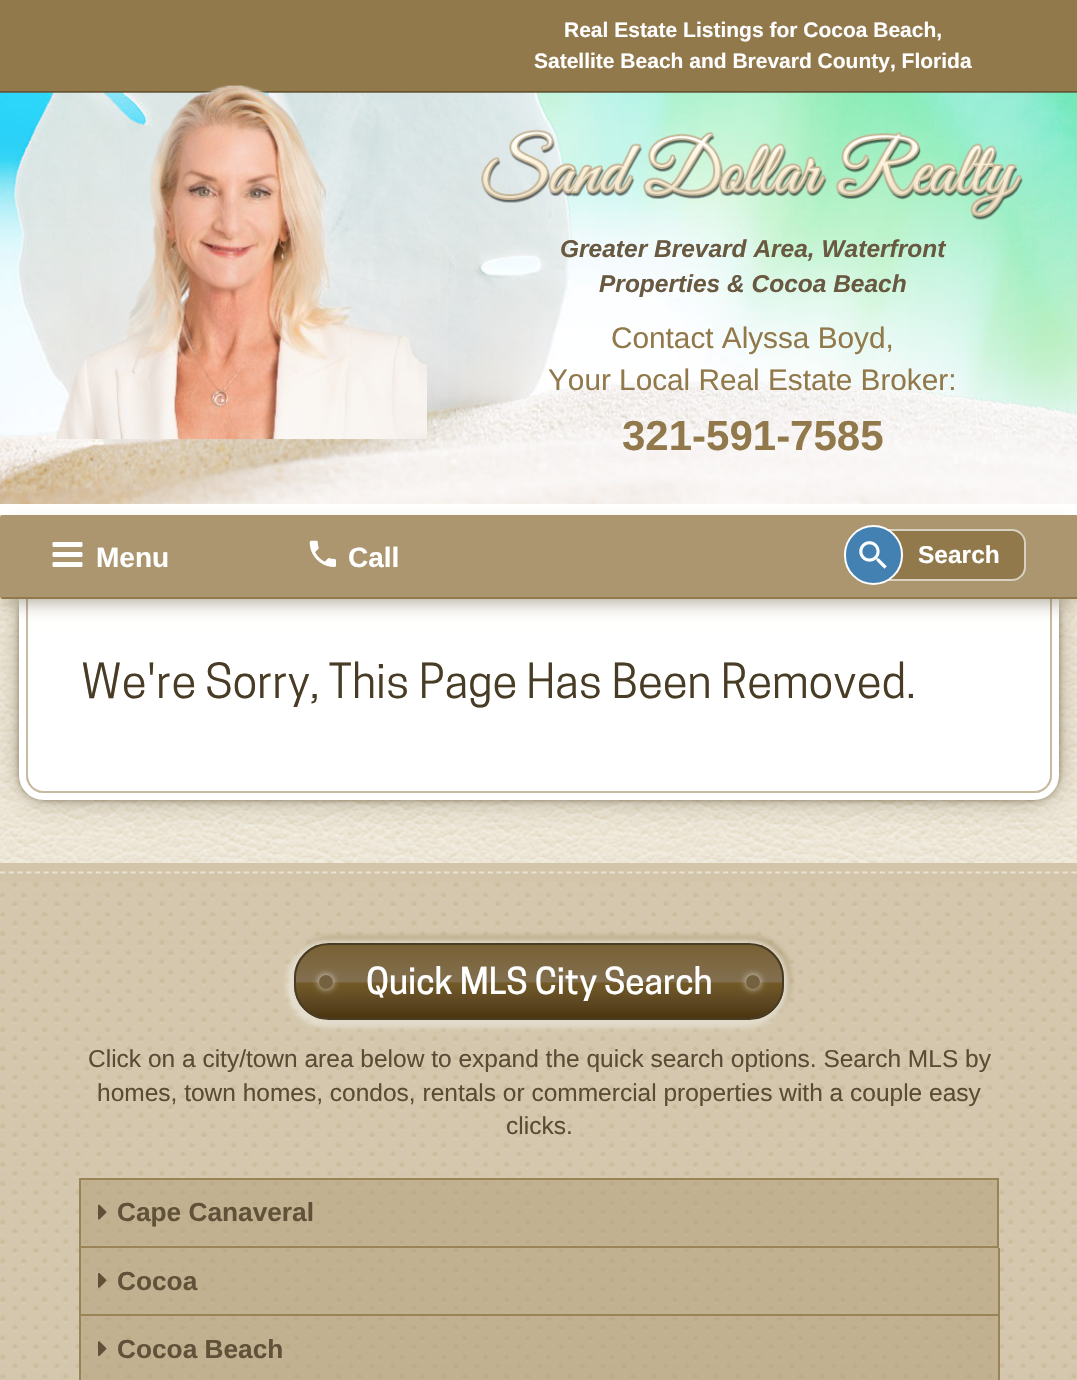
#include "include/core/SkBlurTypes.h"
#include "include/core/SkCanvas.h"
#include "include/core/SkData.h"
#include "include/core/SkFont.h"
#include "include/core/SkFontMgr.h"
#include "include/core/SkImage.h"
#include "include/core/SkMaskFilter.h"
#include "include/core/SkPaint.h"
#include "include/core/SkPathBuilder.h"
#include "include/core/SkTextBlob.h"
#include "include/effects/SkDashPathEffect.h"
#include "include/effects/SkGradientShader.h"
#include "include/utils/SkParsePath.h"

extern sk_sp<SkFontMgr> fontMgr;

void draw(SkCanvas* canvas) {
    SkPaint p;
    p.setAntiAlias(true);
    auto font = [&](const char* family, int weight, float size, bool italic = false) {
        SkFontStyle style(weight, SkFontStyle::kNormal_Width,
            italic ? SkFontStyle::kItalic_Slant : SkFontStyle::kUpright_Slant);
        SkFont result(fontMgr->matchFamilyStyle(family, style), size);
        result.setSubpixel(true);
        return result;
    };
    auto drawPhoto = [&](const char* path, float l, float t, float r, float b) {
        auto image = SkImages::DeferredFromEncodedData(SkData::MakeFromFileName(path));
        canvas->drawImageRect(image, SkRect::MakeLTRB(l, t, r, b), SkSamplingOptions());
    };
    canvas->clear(0xFFFFFFFF);
    drawPhoto("media/1.png", 0, 599, 1077, 863);
    p.setColor(0xFF91794B);
    canvas->drawRect(SkRect::MakeLTRB(0, 0, 1077, 91), p);
    p.setColor(0xFF665535);
    canvas->drawRect(SkRect::MakeLTRB(0, 91, 1077, 93), p);
    auto font1 = font("Liberation Sans", 700, 21);
    p.setColor(0xFFFFFFFF);
    canvas->drawString("Real Estate Listings for Cocoa Beach,", 564, 37, font1, p);
    canvas->drawString("Satellite Beach and Brevard County, Florida", 534, 68, font1, p);
    drawPhoto("media/2.png", 0, 92, 1077, 504);
    drawPhoto("media/3.png", 56, 84, 427, 440);
    drawPhoto("media/4.png", 481, 129, 1023, 220);
    auto font2 = font("Liberation Sans", 700, 24.5f, true);
    p.setColor(0xFF695941);
    canvas->drawString("Greater Brevard Area, Waterfront", 560, 257, font2, p);
    canvas->drawString("Properties & Cocoa Beach", 599, 292, font2, p);
    auto font3 = font("Liberation Sans", 400, 29.75f);
    p.setColor(0xFF91794B);
    canvas->drawString("Contact Alyssa Boyd,", 611, 348, font3, p);
    canvas->drawString("Your Local Real Estate Broker:", 548, 390, font3, p);
    auto font4 = font("Liberation Sans", 700, 42);
    canvas->drawString("321-591-7585", 622, 450, font4, p);
    p.setColor(0x66332200);
    p.setMaskFilter(SkMaskFilter::MakeBlur(kNormal_SkBlurStyle, 17.5f));
    canvas->drawRoundRect(SkRect::MakeLTRB(25, 597, 1054, 795), 19, 19, p);
    p.setMaskFilter(nullptr);
    p.setColor(0xB3332200);
    p.setMaskFilter(SkMaskFilter::MakeBlur(kNormal_SkBlurStyle, 4.5f));
    canvas->drawRoundRect(SkRect::MakeLTRB(21, 593, 1057, 798), 23, 23, p);
    p.setMaskFilter(nullptr);
    p.setStyle(SkPaint::kStroke_Style);
    p.setStrokeWidth(7);
    p.setColor(0xFFFFFFFF);
    canvas->drawPath(SkPathBuilder().moveTo(22.5f, 595.5f).lineTo(1055.5f, 595.5f).lineTo(1055.5f, 775).cubicTo(1055.5f, 787, 1046, 796.5f, 1034, 796.5f).lineTo(44, 796.5f).cubicTo(32, 796.5f, 22.5f, 787, 22.5f, 775).close().detach(), p);
    p.setStyle(SkPaint::kFill_Style);
    canvas->drawPath(SkPathBuilder().moveTo(26, 599).lineTo(1052, 599).lineTo(1052, 775).cubicTo(1052, 785, 1044, 793, 1034, 793).lineTo(44, 793).cubicTo(34, 793, 26, 785, 26, 775).close().detach(), p);
    p.setColor(0xFFC8BA9F);
    canvas->drawPath(SkPathBuilder(SkPathFillType::kEvenOdd).moveTo(26, 598).lineTo(1052, 598).lineTo(1052, 775).cubicTo(1052, 785, 1044, 793, 1034, 793).lineTo(44, 793).cubicTo(34, 793, 26, 785, 26, 775).close().moveTo(28, 598).lineTo(1050, 598).lineTo(1050, 775).cubicTo(1050, 784, 1043, 791, 1034, 791).lineTo(44, 791).cubicTo(35, 791, 28, 784, 28, 775).close().detach(), p);
    p.setColor(0x66332200);
    p.setMaskFilter(SkMaskFilter::MakeBlur(kNormal_SkBlurStyle, 9));
    canvas->drawRect(SkRect::MakeLTRB(5, 529, 1073, 602), p);
    p.setMaskFilter(nullptr);
    p.setColor(0xFFAB966F);
    canvas->drawRoundRect(SkRect::MakeLTRB(0, 515, 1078, 599), 2, 2, p);
    p.setColor(0xFF91794B);
    canvas->drawRect(SkRect::MakeLTRB(2, 597, 1077, 599), p);
    drawPhoto("media/5.png", 52, 542, 83, 567);
    auto font5 = font("Liberation Sans", 700, 28);
    p.setColor(0xFFFFFFFF);
    canvas->drawString("Menu", 96, 567, font5, p);
    drawPhoto("media/6.png", 309, 540, 336, 567);
    canvas->drawString("Call", 348, 567, font5, p);
    p.setColor(0xFF91794B);
    canvas->drawPath(SkPathBuilder().moveTo(860, 530).lineTo(1012, 530).cubicTo(1019, 530, 1025, 536, 1025, 543).lineTo(1025, 567).cubicTo(1025, 574, 1019, 580, 1012, 580).lineTo(860, 580).close().detach(), p);
    p.setStyle(SkPaint::kStroke_Style);
    p.setStrokeWidth(2);
    p.setColor(0xFFD8D0C1);
    canvas->drawPath(SkPathBuilder().moveTo(860, 530).lineTo(1012, 530).cubicTo(1019, 530, 1025, 536, 1025, 543).lineTo(1025, 567).cubicTo(1025, 574, 1019, 580, 1012, 580).lineTo(860, 580).close().detach(), p);
    p.setStyle(SkPaint::kFill_Style);
    p.setColor(0xFF4281B1);
    canvas->drawRoundRect(SkRect::MakeLTRB(845, 526, 902, 584), 28.5f, 28.5f, p);
    p.setStyle(SkPaint::kStroke_Style);
    p.setColor(0xFFFFFFFF);
    canvas->drawRoundRect(SkRect::MakeLTRB(845, 526, 902, 584), 28.5f, 28.5f, p);
    drawPhoto("media/7.png", 859, 541, 887, 569);
    auto font6 = font("Liberation Sans", 700, 24.5f);
    p.setStyle(SkPaint::kFill_Style);
    canvas->drawString("Search", 918, 563, font6, p);
    auto font7 = font("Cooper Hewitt", 400, 45.5f);
    p.setColor(0xFF483C25);
    canvas->drawString("We're Sorry, This Page Has Been Removed.", 81, 698, font7, p);
    p.setStyle(SkPaint::kStroke_Style);
    p.setStrokeWidth(9);
    p.setColor(0xFFD2C5A9);
    canvas->drawRect(SkRect::MakeLTRB(-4.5f, 867.5f, 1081.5f, 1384.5f), p);
    p.setStyle(SkPaint::kFill_Style);
    canvas->drawRect(SkRect::MakeLTRB(5, 872, 1077, 873), p);
    drawPhoto("media/8.png", 0, 882, 1077, 1380);
    canvas->save();
    canvas->clipRect(SkRect::MakeLTRB(0, 873, 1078, 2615));
    canvas->drawPath(SkPathBuilder(SkPathFillType::kEvenOdd).moveTo(-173, 700).lineTo(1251, 700).lineTo(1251, 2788).lineTo(-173, 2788).close().moveTo(0, 882).lineTo(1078, 882).cubicTo(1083, 882, 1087, 886, 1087, 891).lineTo(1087, 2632).cubicTo(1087, 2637, 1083, 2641, 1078, 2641).lineTo(0, 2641).cubicTo(-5, 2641, -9, 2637, -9, 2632).lineTo(-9, 891).cubicTo(-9, 886, -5, 882, 0, 882).close().detach(), p);
    canvas->restore();
    p.setStyle(SkPaint::kStroke_Style);
    p.setStrokeWidth(1.8f);
    p.setColor(0xFFEAE2D1);
    p.setPathEffect(SkDashPathEffect::Make({{5.25f, 3.46f}}, 0));
    canvas->drawPath(SkPathBuilder().moveTo(0, 872.5f).lineTo(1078, 872.5f).detach(), p);
    p.setPathEffect(nullptr);
    p.setStyle(SkPaint::kFill_Style);
    p.setColor(0x7391794B);
    p.setMaskFilter(SkMaskFilter::MakeBlur(kNormal_SkBlurStyle, 2.5f));
    canvas->drawRoundRect(SkRect::MakeLTRB(291, 936, 791, 1024), 40, 40, p);
    p.setMaskFilter(nullptr);
    p.setColor(0xBFF0ECE2);
    p.setMaskFilter(SkMaskFilter::MakeBlur(kNormal_SkBlurStyle, 2.5f));
    canvas->drawRoundRect(SkRect::MakeLTRB(287, 940, 788, 1027), 40, 40, p);
    p.setMaskFilter(nullptr);
    canvas->save();
    canvas->clipPath(SkPathBuilder().moveTo(329, 943).lineTo(749, 943).cubicTo(768.5f, 943, 784, 958.5f, 784, 978).lineTo(784, 985).cubicTo(784, 1004.5f, 768.5f, 1020, 749, 1020).lineTo(329, 1020).cubicTo(309.5f, 1020, 294, 1004.5f, 294, 985).lineTo(294, 978).cubicTo(294, 958.5f, 309.5f, 943, 329, 943).close().detach(), true);
    {
        const SkColor colors[] = {0xFF796134, 0xFF826F50, 0xFF735A27, 0xFF5D4722, 0xFF4A340E};
        const float stops[] = {0, 0.5f, 0.51f, 0.78f, 1};
        const SkPoint ends[] = {{539, 945}, {539, 1019}};
        p.setShader(SkGradientShader::MakeLinear(ends, colors, stops, 5, SkTileMode::kClamp));
        p.setAlpha(255);
    }
    canvas->drawRect(SkRect::MakeLTRB(294, 945, 784, 1019), p);
    canvas->restore();
    p.setStyle(SkPaint::kStroke_Style);
    p.setStrokeWidth(2);
    p.setShader(nullptr);
    p.setColor(0xFF483C25);
    canvas->drawRoundRect(SkRect::MakeLTRB(295, 944, 783, 1019), 34, 34, p);
    p.setStyle(SkPaint::kFill_Style);
    p.setColor(0xCCFFFFFF);
    p.setMaskFilter(SkMaskFilter::MakeBlur(kNormal_SkBlurStyle, 3.5f));
    canvas->drawRoundRect(SkRect::MakeLTRB(319, 975, 333, 989), 7, 7, p);
    p.setMaskFilter(nullptr);
    p.setColor(0xFF736140);
    canvas->drawCircle(326, 982, 7, p);
    auto font8 = font("Cooper Hewitt", 500, 35);
    p.setColor(0xFFFFFFFF);
    canvas->drawString("Quick MLS City Search", 366, 994, font8, p);
    p.setColor(0xCCFFFFFF);
    p.setMaskFilter(SkMaskFilter::MakeBlur(kNormal_SkBlurStyle, 3.5f));
    canvas->drawRoundRect(SkRect::MakeLTRB(746, 975, 760, 989), 7, 7, p);
    p.setMaskFilter(nullptr);
    p.setColor(0xFF736140);
    canvas->drawCircle(753, 982, 7, p);
    auto font9 = font("Liberation Sans", 400, 24.5f);
    p.setColor(0xFF5A4B34);
    {
        const struct { const char* s; float x, y; } items[] = {
            {"Click on a city/town area below to expand the quick search options. Search MLS by", 88, 1067},
            {"homes, town homes, condos, rentals or commercial properties with a couple easy", 97, 1101},
            {"clicks.", 506, 1134},
        };
        for (auto [s, x, y] : items) {
            canvas->drawString(s, x, y, font9, p);
        }
    }
    p.setColor(0x73AB966F);
    canvas->drawRect(SkRect::MakeLTRB(80, 1179, 998, 1247), p);
    p.setStyle(SkPaint::kStroke_Style);
    p.setColor(0xFF998357);
    canvas->drawRect(SkRect::MakeLTRB(80, 1179, 998, 1247), p);
    drawPhoto("media/9.png", 98, 1204, 107, 1220);
    auto font10 = font("Liberation Sans", 700, 26.25f);
    p.setStyle(SkPaint::kFill_Style);
    p.setColor(0xFF615139);
    canvas->drawString("Cape Canaveral", 117, 1221, font10, p);
    {
        const struct { float l, t, r, b; SkColor color; } items[] = {
            {81, 1248, 998, 1314, 0x73AB966F},
            {998, 1248, 1000, 1380, 0xFF998357},
            {79, 1314, 999, 1316, 0xFF998357},
            {79, 1248, 81, 1380, 0xFF998357},
        };
        for (auto [l, t, r, b, color] : items) {
            p.setColor(color);
            canvas->drawRect(SkRect::MakeLTRB(l, t, r, b), p);
        }
    }
    drawPhoto("media/10.png", 98, 1273, 107, 1288);
    p.setColor(0xFF615139);
    canvas->drawString("Cocoa", 117, 1290, font10, p);
    p.setColor(0x73AB966F);
    canvas->drawRect(SkRect::MakeLTRB(81, 1316, 998, 1380), p);
    drawPhoto("media/11.png", 98, 1341, 107, 1356);
    p.setColor(0xFF615139);
    canvas->drawString("Cocoa Beach", 117, 1358, font10, p);
}
